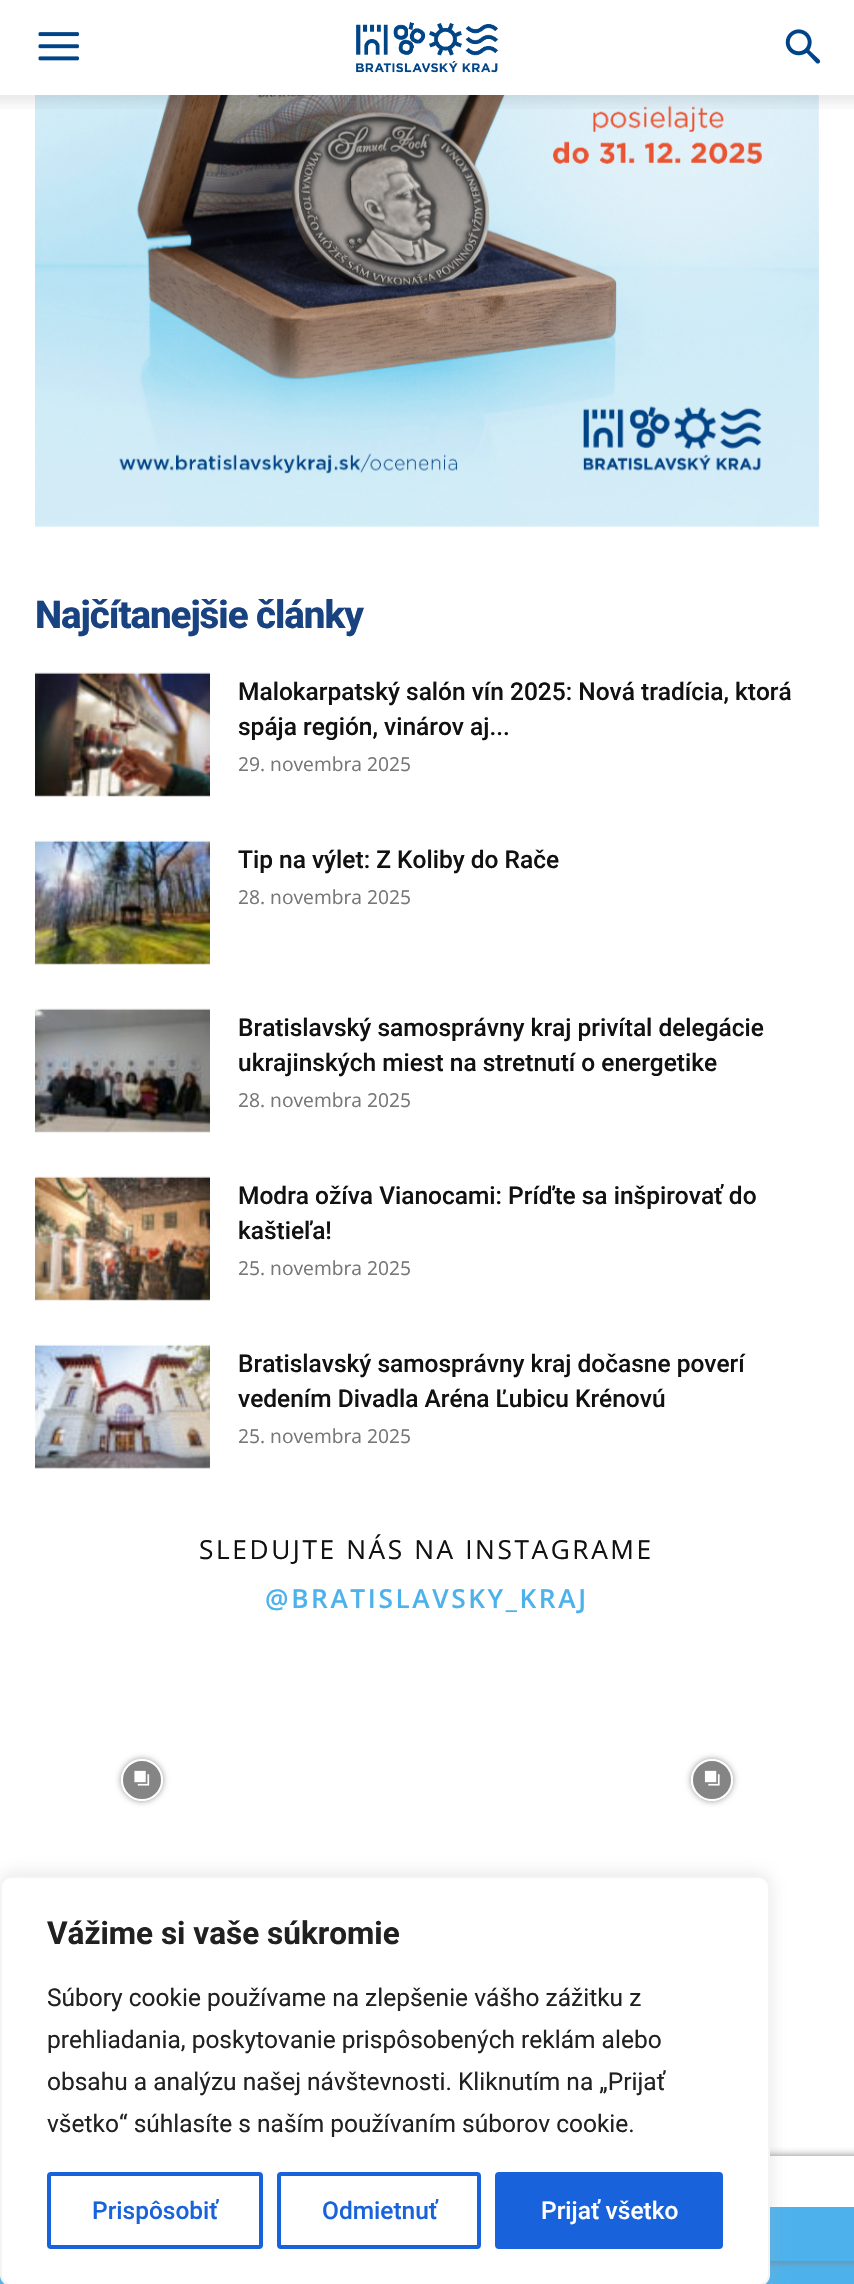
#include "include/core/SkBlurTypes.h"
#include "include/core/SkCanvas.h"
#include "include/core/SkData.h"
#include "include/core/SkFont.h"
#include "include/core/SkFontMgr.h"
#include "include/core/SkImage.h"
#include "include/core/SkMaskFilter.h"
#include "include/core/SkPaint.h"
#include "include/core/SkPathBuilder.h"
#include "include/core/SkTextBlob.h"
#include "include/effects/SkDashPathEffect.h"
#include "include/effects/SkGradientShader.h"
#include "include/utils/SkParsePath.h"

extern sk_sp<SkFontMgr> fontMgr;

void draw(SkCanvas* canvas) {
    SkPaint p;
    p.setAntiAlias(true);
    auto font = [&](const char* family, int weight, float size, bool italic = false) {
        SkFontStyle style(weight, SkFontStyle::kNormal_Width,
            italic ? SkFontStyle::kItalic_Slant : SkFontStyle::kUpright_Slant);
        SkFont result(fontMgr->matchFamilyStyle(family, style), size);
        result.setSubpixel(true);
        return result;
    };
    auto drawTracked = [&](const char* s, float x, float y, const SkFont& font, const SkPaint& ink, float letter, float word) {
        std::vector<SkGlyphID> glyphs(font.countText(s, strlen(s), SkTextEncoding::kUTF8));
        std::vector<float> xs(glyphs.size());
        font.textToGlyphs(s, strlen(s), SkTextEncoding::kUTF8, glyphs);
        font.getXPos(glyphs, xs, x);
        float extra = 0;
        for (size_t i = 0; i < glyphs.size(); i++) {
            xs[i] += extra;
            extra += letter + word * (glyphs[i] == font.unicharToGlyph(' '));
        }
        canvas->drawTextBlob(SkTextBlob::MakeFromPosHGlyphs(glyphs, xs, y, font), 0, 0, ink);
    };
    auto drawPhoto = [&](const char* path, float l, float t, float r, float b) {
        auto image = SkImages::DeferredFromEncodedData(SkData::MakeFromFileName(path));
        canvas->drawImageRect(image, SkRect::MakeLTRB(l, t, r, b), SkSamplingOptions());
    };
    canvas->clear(0xFFFFFFFF);
    drawPhoto("media/1.png", 38, 32, 79, 61);
    drawPhoto("media/2.png", 356, 22, 499, 73);
    drawPhoto("media/3.png", 785, 29, 821, 64);
    drawPhoto("media/5.png", 35, 95, 819, 527);
    drawPhoto("media/4.png", 0, 95, 854, 109);
    auto font1 = font("Roboto", 800, 38.5f);
    p.setColor(0xFF194281);
    drawTracked("Najčítanejšie články", 35, 628, font1, p, -1.05f, 0);
    drawPhoto("media/6.png", 35, 672, 210, 797);
    auto font2 = font("Roboto", 500, 24.5f);
    p.setColor(0xFF111111);
    canvas->drawString("Malokarpatský salón vín 2025: Nová tradícia, ktorá", 238, 700, font2, p);
    canvas->drawString("spája región, vinárov aj...", 238, 735, font2, p);
    auto font3 = font("Open Sans", 400, 19.25f);
    p.setColor(0xFF767676);
    canvas->drawString("29. novembra 2025", 238, 771, font3, p);
    drawPhoto("media/7.png", 35, 840, 210, 965);
    p.setColor(0xFF111111);
    canvas->drawString("Tip na výlet: Z Koliby do Rače", 238, 868, font2, p);
    p.setColor(0xFF767676);
    canvas->drawString("28. novembra 2025", 238, 904, font3, p);
    drawPhoto("media/8.png", 35, 1008, 210, 1133);
    p.setColor(0xFF111111);
    canvas->drawString("Bratislavský samosprávny kraj privítal delegácie", 238, 1036, font2, p);
    canvas->drawString("ukrajinských miest na stretnutí o energetike", 238, 1071, font2, p);
    p.setColor(0xFF767676);
    canvas->drawString("28. novembra 2025", 238, 1107, font3, p);
    drawPhoto("media/9.png", 35, 1176, 210, 1301);
    p.setColor(0xFF111111);
    canvas->drawString("Modra ožíva Vianocami: Príďte sa inšpirovať do", 238, 1204, font2, p);
    canvas->drawString("kaštieľa!", 238, 1239, font2, p);
    p.setColor(0xFF767676);
    canvas->drawString("25. novembra 2025", 238, 1275, font3, p);
    drawPhoto("media/10.png", 35, 1344, 210, 1469);
    p.setColor(0xFF111111);
    canvas->drawString("Bratislavský samosprávny kraj dočasne poverí", 238, 1372, font2, p);
    canvas->drawString("vedením Divadla Aréna Ľubicu Krénovú", 238, 1407, font2, p);
    p.setColor(0xFF767676);
    canvas->drawString("25. novembra 2025", 238, 1443, font3, p);
    auto font4 = font("Open Sans", 400, 26.25f);
    p.setColor(0xFF111111);
    drawTracked("SLEDUJTE NÁS NA INSTAGRAME", 199, 1559, font4, p, 2.6f, 0);
    auto font5 = font("Open Sans", 600, 26.25f);
    p.setColor(0xFF4DB2EC);
    drawTracked("@BRATISLAVSKY_KRAJ", 265, 1608, font5, p, 2.6f, 0);
    canvas->save();
    canvas->clipPath(SkPathBuilder(SkPathFillType::kEvenOdd).moveTo(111, 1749).lineTo(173, 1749).lineTo(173, 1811).lineTo(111, 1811).close().moveTo(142, 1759).cubicTo(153.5f, 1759, 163, 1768.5f, 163, 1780).cubicTo(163, 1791.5f, 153.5f, 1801, 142, 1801).cubicTo(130.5f, 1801, 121, 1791.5f, 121, 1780).cubicTo(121, 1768.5f, 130.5f, 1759, 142, 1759).close().detach(), true);
    p.setColor(0x66000000);
    p.setMaskFilter(SkMaskFilter::MakeBlur(kNormal_SkBlurStyle, 3));
    canvas->drawRoundRect(SkRect::MakeLTRB(121, 1759, 163, 1801), 21, 21, p);
    p.setMaskFilter(nullptr);
    canvas->restore();
    p.setColor(0x7A000000);
    canvas->drawCircle(142, 1780, 20, p);
    p.setStyle(SkPaint::kStroke_Style);
    p.setStrokeWidth(2);
    p.setColor(0xFFFFFFFF);
    canvas->drawCircle(142, 1780, 20, p);
    drawPhoto("media/11.png", 134, 1770, 150, 1786);
    canvas->save();
    canvas->clipPath(SkPathBuilder(SkPathFillType::kEvenOdd).moveTo(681, 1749).lineTo(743, 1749).lineTo(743, 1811).lineTo(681, 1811).close().moveTo(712, 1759).cubicTo(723.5f, 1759, 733, 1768.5f, 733, 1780).cubicTo(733, 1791.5f, 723.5f, 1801, 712, 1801).cubicTo(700.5f, 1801, 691, 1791.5f, 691, 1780).cubicTo(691, 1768.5f, 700.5f, 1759, 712, 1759).close().detach(), true);
    p.setStyle(SkPaint::kFill_Style);
    p.setColor(0x66000000);
    p.setMaskFilter(SkMaskFilter::MakeBlur(kNormal_SkBlurStyle, 3));
    canvas->drawRoundRect(SkRect::MakeLTRB(691, 1759, 733, 1801), 21, 21, p);
    p.setMaskFilter(nullptr);
    canvas->restore();
    p.setColor(0x7A000000);
    canvas->drawCircle(712, 1780, 20, p);
    p.setStyle(SkPaint::kStroke_Style);
    p.setColor(0xFFFFFFFF);
    canvas->drawCircle(712, 1780, 20, p);
    drawPhoto("media/12.png", 704, 1770, 720, 1786);
    p.setStyle(SkPaint::kFill_Style);
    p.setColor(0xFF4DB2EC);
    canvas->drawRect(SkRect::MakeLTRB(0, 2207, 854, 2284), p);
    p.setColor(0x4DACABAB);
    p.setMaskFilter(SkMaskFilter::MakeBlur(kNormal_SkBlurStyle, 9));
    canvas->drawRoundRect(SkRect::MakeLTRB(0, 1874, 770, 2284), 11, 11, p);
    p.setMaskFilter(nullptr);
    canvas->save();
    canvas->clipPath(SkPathBuilder(SkPathFillType::kEvenOdd).moveTo(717, 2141).lineTo(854, 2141).lineTo(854, 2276).lineTo(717, 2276).close().moveTo(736, 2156).lineTo(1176, 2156).cubicTo(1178, 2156, 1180, 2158, 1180, 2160).lineTo(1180, 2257).cubicTo(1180, 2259, 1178, 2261, 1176, 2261).lineTo(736, 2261).cubicTo(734, 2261, 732, 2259, 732, 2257).lineTo(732, 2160).cubicTo(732, 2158, 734, 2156, 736, 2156).close().detach(), true);
    p.setColor(0xFF808080);
    p.setMaskFilter(SkMaskFilter::MakeBlur(kNormal_SkBlurStyle, 4.5f));
    canvas->drawRoundRect(SkRect::MakeLTRB(732, 2156, 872, 2261), 4, 4, p);
    p.setMaskFilter(nullptr);
    canvas->restore();
    p.setColor(0xFFFFFFFF);
    canvas->drawRoundRect(SkRect::MakeLTRB(1, 1877, 769, 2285), 10, 10, p);
    p.setStyle(SkPaint::kStroke_Style);
    p.setColor(0xFFF4F4F4);
    canvas->drawRoundRect(SkRect::MakeLTRB(1, 1877, 769, 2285), 10, 10, p);
    auto font6 = font("Roboto", 700, 31.5f);
    p.setStyle(SkPaint::kFill_Style);
    p.setColor(0xFF212121);
    canvas->drawString("Vážime si vaše súkromie", 47, 1944, font6, p);
    auto font7 = font("Roboto", 400, 24.5f);
    {
        const struct { const char* s; float x, y; } items[] = {
            {"Súbory cookie používame na zlepšenie vášho zážitku z", 47, 2006},
            {"prehliadania, poskytovanie prispôsobených reklám alebo", 47, 2048},
            {"obsahu a analýzu našej návštevnosti. Kliknutím na „Prijať", 47, 2090},
            {"všetko“ súhlasíte s naším používaním súborov cookie.", 47, 2132},
        };
        for (auto [s, x, y] : items) {
            canvas->drawString(s, x, y, font7, p);
        }
    }
    p.setStyle(SkPaint::kStroke_Style);
    p.setStrokeWidth(4);
    p.setColor(0xFF1863DC);
    canvas->drawRoundRect(SkRect::MakeLTRB(49, 2174, 261, 2247), 2, 2, p);
    p.setStyle(SkPaint::kFill_Style);
    canvas->drawString("Prispôsobiť", 92, 2219, font2, p);
    p.setStyle(SkPaint::kStroke_Style);
    canvas->drawRoundRect(SkRect::MakeLTRB(279, 2174, 479, 2247), 2, 2, p);
    p.setStyle(SkPaint::kFill_Style);
    canvas->drawString("Odmietnuť", 322, 2219, font2, p);
    canvas->drawRoundRect(SkRect::MakeLTRB(497, 2174, 721, 2247), 2, 2, p);
    p.setStyle(SkPaint::kStroke_Style);
    canvas->drawRoundRect(SkRect::MakeLTRB(497, 2174, 721, 2247), 2, 2, p);
    p.setStyle(SkPaint::kFill_Style);
    p.setColor(0xFFFFFFFF);
    canvas->drawString("Prijať všetko", 541, 2219, font2, p);
}
